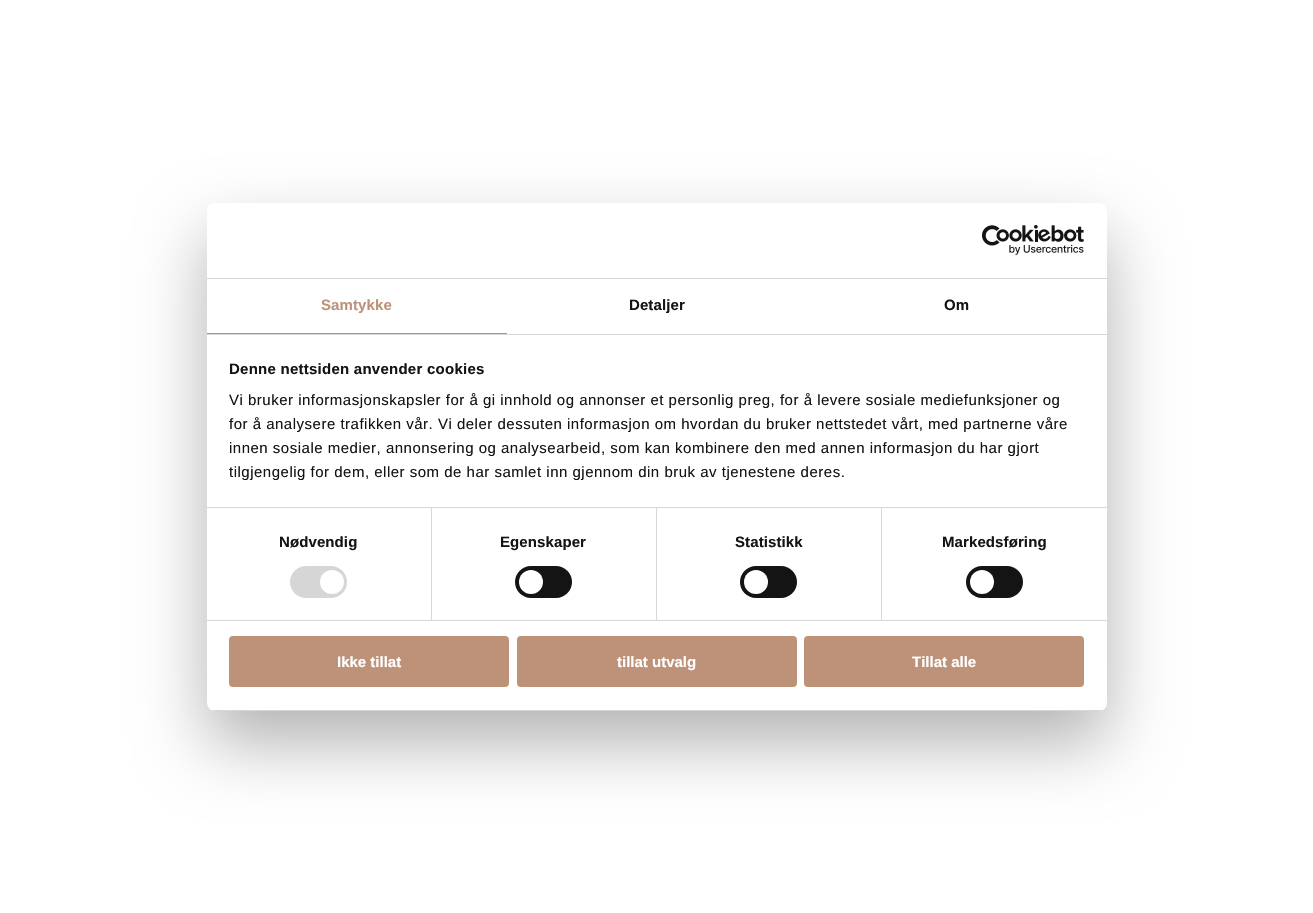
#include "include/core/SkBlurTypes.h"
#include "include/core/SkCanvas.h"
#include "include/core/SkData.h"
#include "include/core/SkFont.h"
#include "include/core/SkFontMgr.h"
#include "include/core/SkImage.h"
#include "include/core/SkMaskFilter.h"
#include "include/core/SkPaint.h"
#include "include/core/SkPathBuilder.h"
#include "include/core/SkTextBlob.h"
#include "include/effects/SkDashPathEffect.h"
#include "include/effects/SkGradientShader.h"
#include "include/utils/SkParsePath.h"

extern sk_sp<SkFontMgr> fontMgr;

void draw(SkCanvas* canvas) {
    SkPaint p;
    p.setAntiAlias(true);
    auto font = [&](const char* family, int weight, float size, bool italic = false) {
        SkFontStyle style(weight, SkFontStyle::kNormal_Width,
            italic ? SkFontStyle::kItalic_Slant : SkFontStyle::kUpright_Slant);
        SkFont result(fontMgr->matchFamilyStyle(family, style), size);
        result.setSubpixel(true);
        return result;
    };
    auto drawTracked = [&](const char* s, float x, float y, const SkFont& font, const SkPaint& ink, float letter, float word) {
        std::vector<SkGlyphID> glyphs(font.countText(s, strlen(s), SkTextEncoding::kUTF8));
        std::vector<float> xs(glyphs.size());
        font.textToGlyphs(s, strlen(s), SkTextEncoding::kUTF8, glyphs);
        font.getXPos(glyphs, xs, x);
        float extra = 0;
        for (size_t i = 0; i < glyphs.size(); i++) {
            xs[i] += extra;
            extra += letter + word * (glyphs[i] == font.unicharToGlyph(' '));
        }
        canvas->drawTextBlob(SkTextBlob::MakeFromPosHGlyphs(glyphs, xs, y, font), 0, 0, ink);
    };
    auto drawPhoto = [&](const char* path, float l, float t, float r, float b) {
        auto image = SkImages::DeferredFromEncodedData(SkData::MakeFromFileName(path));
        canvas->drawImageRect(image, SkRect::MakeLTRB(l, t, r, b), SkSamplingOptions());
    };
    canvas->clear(0xFFFFFFFF);
    p.setColor(0x4D000000);
    p.setMaskFilter(SkMaskFilter::MakeBlur(kNormal_SkBlurStyle, 34));
    canvas->drawRoundRect(SkRect::MakeLTRB(207, 235, 1107, 743), 8, 8, p);
    p.setMaskFilter(nullptr);
    p.setColor(0xFFFFFFFF);
    canvas->drawRoundRect(SkRect::MakeLTRB(207, 203, 1107, 711), 8, 8, p);
    p.setColor(0xFFD6D6D6);
    canvas->drawRect(SkRect::MakeLTRB(207, 278, 1107, 279), p);
    drawPhoto("media/1.png", 982, 225, 1084, 255);
    canvas->drawRect(SkRect::MakeLTRB(207, 334, 1107, 335), p);
    p.setColor(0xFFBE9279);
    canvas->drawRect(SkRect::MakeLTRB(207, 333, 507, 334), p);
    auto font1 = font("Liberation Sans", 700, 15);
    drawTracked("Samtykke", 321, 310, font1, p, 0.1f, 0);
    p.setColor(0xFF141414);
    drawTracked("Detaljer", 629, 310, font1, p, 0.1f, 0);
    drawTracked("Om", 944, 310, font1, p, 0.1f, 0);
    p.setColor(0xFFD6D6D6);
    canvas->drawRect(SkRect::MakeLTRB(207, 507, 1107, 508), p);
    p.setColor(0xFF141414);
    drawTracked("Denne nettsiden anvender cookies", 229, 374, font1, p, 0.25f, 0);
    auto font2 = font("Liberation Sans", 400, 15);
    {
        const struct { const char* s; float x, y; } items[] = {
            {"Vi bruker informasjonskapsler for å gi innhold og annonser et personlig preg, for å levere sosiale mediefunksjoner og", 229, 405},
            {"for å analysere trafikken vår. Vi deler dessuten informasjon om hvordan du bruker nettstedet vårt, med partnerne våre", 229, 429},
            {"innen sosiale medier, annonsering og analysearbeid, som kan kombinere den med annen informasjon du har gjort", 229, 453},
            {"tilgjengelig for dem, eller som de har samlet inn gjennom din bruk av tjenestene deres.", 229, 477},
        };
        for (auto [s, x, y] : items) {
            drawTracked(s, x, y, font2, p, 0.5f, 0);
        }
    }
    p.setColor(0xFFD6D6D6);
    canvas->drawRect(SkRect::MakeLTRB(207, 620, 1107, 621), p);
    canvas->drawRect(SkRect::MakeLTRB(431, 508, 432, 620), p);
    p.setColor(0xFF141414);
    drawTracked("Nødvendig", 279, 547, font1, p, 0.1f, 0);
    p.setColor(0xFFD6D6D6);
    canvas->drawRoundRect(SkRect::MakeLTRB(290, 566, 347, 598), 16, 16, p);
    p.setColor(0xFFFFFFFF);
    canvas->drawCircle(332, 582, 12, p);
    p.setColor(0xFFD6D6D6);
    canvas->drawRect(SkRect::MakeLTRB(656, 508, 657, 620), p);
    p.setColor(0xFF141414);
    drawTracked("Egenskaper", 500, 547, font1, p, 0.1f, 0);
    canvas->drawRoundRect(SkRect::MakeLTRB(515, 566, 572, 598), 16, 16, p);
    p.setColor(0xFFFFFFFF);
    canvas->drawCircle(531, 582, 12, p);
    p.setColor(0xFFD6D6D6);
    canvas->drawRect(SkRect::MakeLTRB(881, 508, 882, 620), p);
    p.setColor(0xFF141414);
    drawTracked("Statistikk", 735, 547, font1, p, 0.1f, 0);
    canvas->drawRoundRect(SkRect::MakeLTRB(740, 566, 797, 598), 16, 16, p);
    p.setColor(0xFFFFFFFF);
    canvas->drawCircle(756, 582, 12, p);
    p.setColor(0xFF141414);
    drawTracked("Markedsføring", 942, 547, font1, p, 0.1f, 0);
    canvas->drawRoundRect(SkRect::MakeLTRB(966, 566, 1023, 598), 16, 16, p);
    p.setColor(0xFFFFFFFF);
    canvas->drawCircle(982, 582, 12, p);
    canvas->save();
    canvas->clipPath(SkPathBuilder().moveTo(215, 203).lineTo(1099, 203).cubicTo(1103.5f, 203, 1107, 206.5f, 1107, 211).lineTo(1107, 703).cubicTo(1107, 707.5f, 1103.5f, 711, 1099, 711).lineTo(215, 711).cubicTo(210.5f, 711, 207, 707.5f, 207, 703).lineTo(207, 211).cubicTo(207, 206.5f, 210.5f, 203, 215, 203).close().detach(), true);
    p.setColor(0xFFD6D6D6);
    canvas->drawRect(SkRect::MakeLTRB(207, 710, 1107, 711), p);
    canvas->restore();
    p.setColor(0xFFBE9279);
    canvas->drawRoundRect(SkRect::MakeLTRB(230, 637, 508, 686), 3, 3, p);
    p.setStyle(SkPaint::kStroke_Style);
    p.setStrokeWidth(2);
    canvas->drawRoundRect(SkRect::MakeLTRB(230, 637, 508, 686), 3, 3, p);
    p.setStyle(SkPaint::kFill_Style);
    p.setColor(0xFFFFFFFF);
    canvas->drawString("Ikke tillat", 337, 667, font1, p);
    p.setColor(0xFFBE9279);
    canvas->drawRoundRect(SkRect::MakeLTRB(518, 637, 796, 686), 3, 3, p);
    p.setStyle(SkPaint::kStroke_Style);
    canvas->drawRoundRect(SkRect::MakeLTRB(518, 637, 796, 686), 3, 3, p);
    p.setStyle(SkPaint::kFill_Style);
    p.setColor(0xFFFFFFFF);
    canvas->drawString("tillat utvalg", 617, 667, font1, p);
    p.setColor(0xFFBE9279);
    canvas->drawRoundRect(SkRect::MakeLTRB(805, 637, 1083, 686), 3, 3, p);
    p.setStyle(SkPaint::kStroke_Style);
    canvas->drawRoundRect(SkRect::MakeLTRB(805, 637, 1083, 686), 3, 3, p);
    p.setStyle(SkPaint::kFill_Style);
    p.setColor(0xFFFFFFFF);
    canvas->drawString("Tillat alle", 912, 667, font1, p);
}
